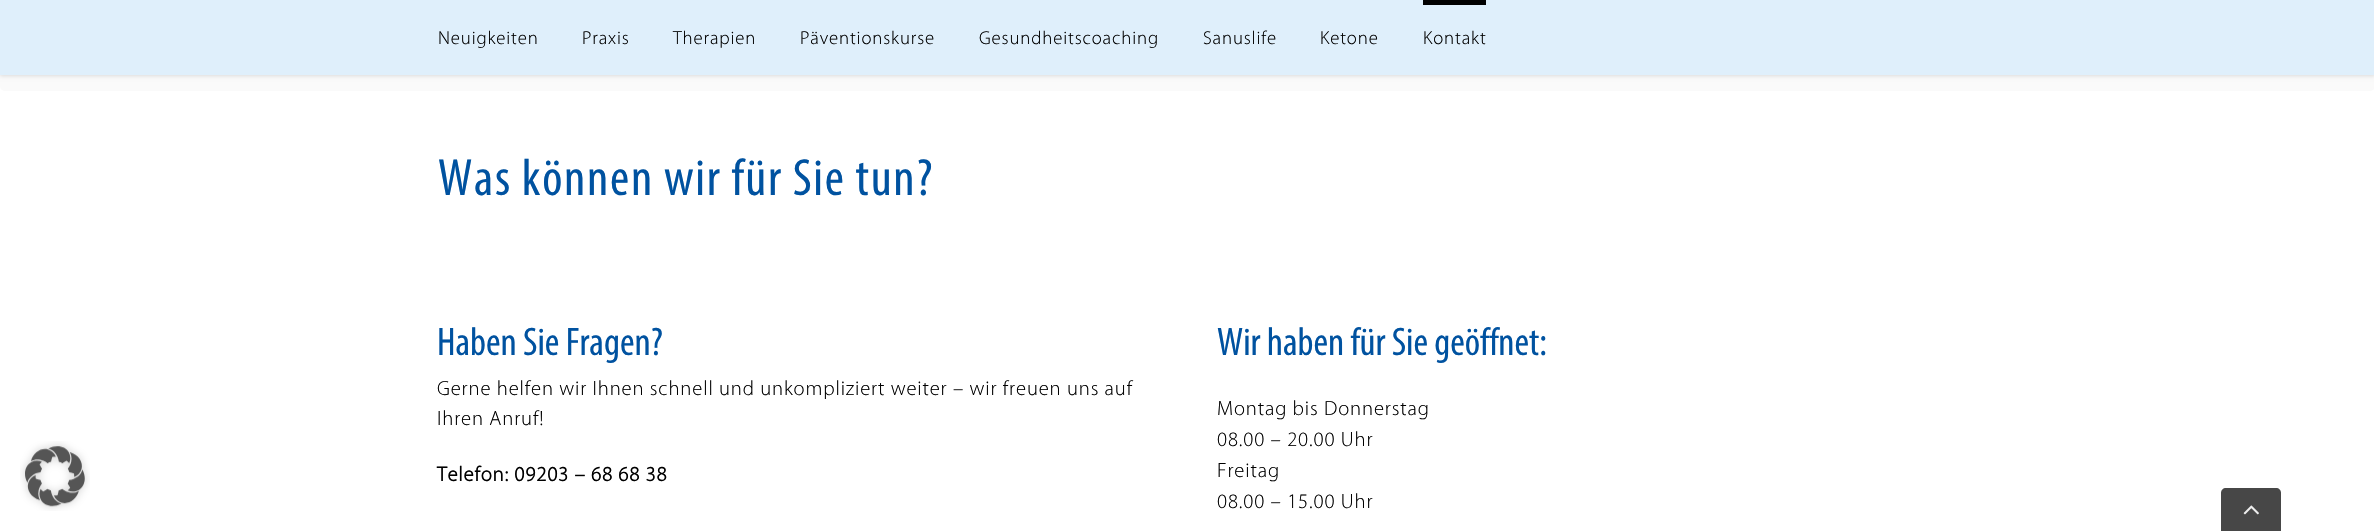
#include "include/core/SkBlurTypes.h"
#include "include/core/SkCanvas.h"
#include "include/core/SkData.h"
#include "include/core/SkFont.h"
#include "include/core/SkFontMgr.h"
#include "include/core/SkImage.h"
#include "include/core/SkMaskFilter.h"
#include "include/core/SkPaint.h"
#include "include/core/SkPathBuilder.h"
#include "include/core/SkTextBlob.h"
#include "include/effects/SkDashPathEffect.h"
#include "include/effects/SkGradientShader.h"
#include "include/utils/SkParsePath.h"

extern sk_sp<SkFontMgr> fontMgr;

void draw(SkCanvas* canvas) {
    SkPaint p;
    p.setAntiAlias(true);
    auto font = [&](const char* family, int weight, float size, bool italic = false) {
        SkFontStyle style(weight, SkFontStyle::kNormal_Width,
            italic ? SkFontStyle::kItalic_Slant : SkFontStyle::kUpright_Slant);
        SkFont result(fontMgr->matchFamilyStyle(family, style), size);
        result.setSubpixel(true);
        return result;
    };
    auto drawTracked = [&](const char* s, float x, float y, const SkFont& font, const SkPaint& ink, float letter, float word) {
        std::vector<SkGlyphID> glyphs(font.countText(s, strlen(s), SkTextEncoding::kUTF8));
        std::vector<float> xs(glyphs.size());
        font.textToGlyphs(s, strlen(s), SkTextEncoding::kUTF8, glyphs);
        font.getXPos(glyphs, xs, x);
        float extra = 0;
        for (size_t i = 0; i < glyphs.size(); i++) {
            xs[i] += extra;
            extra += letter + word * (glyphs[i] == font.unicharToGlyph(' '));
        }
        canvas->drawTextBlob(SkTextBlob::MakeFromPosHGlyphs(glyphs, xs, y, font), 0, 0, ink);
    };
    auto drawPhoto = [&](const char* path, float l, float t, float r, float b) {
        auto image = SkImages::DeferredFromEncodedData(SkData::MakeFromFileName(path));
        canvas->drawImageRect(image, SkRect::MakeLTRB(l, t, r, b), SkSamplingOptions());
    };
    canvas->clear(0xFFFFFFFF);
    drawPhoto("media/1.png", 20, 441, 90, 511);
    p.setColor(0xFFFAFAFA);
    canvas->drawRoundRect(SkRect::MakeLTRB(0, -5, 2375, 91), 5, 5, p);
    p.setColor(0x1F000000);
    p.setMaskFilter(SkMaskFilter::MakeBlur(kNormal_SkBlurStyle, 2));
    canvas->drawRect(SkRect::MakeLTRB(0, 1, 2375, 76), p);
    p.setMaskFilter(nullptr);
    p.setColor(0xFFDFEFFB);
    canvas->drawRect(SkRect::MakeLTRB(0, 0, 2374, 75), p);
    auto font1 = font("Myriad", 300, 18.75f);
    p.setColor(0xFF000000);
    {
        const struct { const char* s; float x, y; } items[] = {
            {"Neuigkeiten", 438, 44},
            {"Praxis", 582, 44},
            {"Therapien", 673, 44},
            {"Päventionskurse", 800, 44},
            {"Gesundheitscoaching", 979, 44},
            {"Sanuslife", 1203, 44},
            {"Ketone", 1320, 44},
        };
        for (auto [s, x, y] : items) {
            drawTracked(s, x, y, font1, p, 0.88f, 0);
        }
    }
    canvas->drawRect(SkRect::MakeLTRB(1423, 0, 1486, 5), p);
    drawTracked("Kontakt", 1423, 44, font1, p, 0.88f, 0);
    auto font2 = font("Myriad", 400, 52.5f);
    p.setColor(0xFF0052A0);
    drawTracked("Was können wir für Sie tun?", 438, 195, font2, p, 1.75f, 0);
    auto font3 = font("Myriad", 400, 40);
    canvas->drawString("Haben Sie Fragen?", 437, 355, font3, p);
    auto font4 = font("Myriad", 300, 20.6f);
    p.setColor(0xFF000000);
    drawTracked("Gerne helfen wir Ihnen schnell und unkompliziert weiter – wir freuen uns auf", 437, 395, font4, p, 0.88f, 0);
    drawTracked("Ihren Anruf!", 437, 425, font4, p, 0.88f, 0);
    auto font5 = font("Myriad", 700, 20.6f);
    drawTracked("Telefon: 09203 – 68 68 38", 437, 481, font5, p, 0.88f, 0);
    p.setColor(0xFF0052A0);
    canvas->drawString("Wir haben für Sie geöffnet:", 1217, 355, font3, p);
    p.setColor(0xFF000000);
    {
        const struct { const char* s; float x, y; } items[] = {
            {"Montag bis Donnerstag", 1217, 415},
            {"08.00 – 20.00 Uhr", 1217, 446},
            {"Freitag", 1217, 477},
            {"08.00 – 15.00 Uhr", 1217, 508},
        };
        for (auto [s, x, y] : items) {
            drawTracked(s, x, y, font4, p, 0.88f, 0);
        }
    }
    p.setColor(0xFF474747);
    canvas->drawPath(SkPathBuilder().moveTo(2226, 488).lineTo(2276, 488).cubicTo(2279, 488, 2281, 490, 2281, 493).lineTo(2281, 531).lineTo(2221, 531).lineTo(2221, 493).cubicTo(2221, 490, 2223, 488, 2226, 488).close().detach(), p);
    drawPhoto("media/2.png", 2243, 505, 2259, 515);
}
